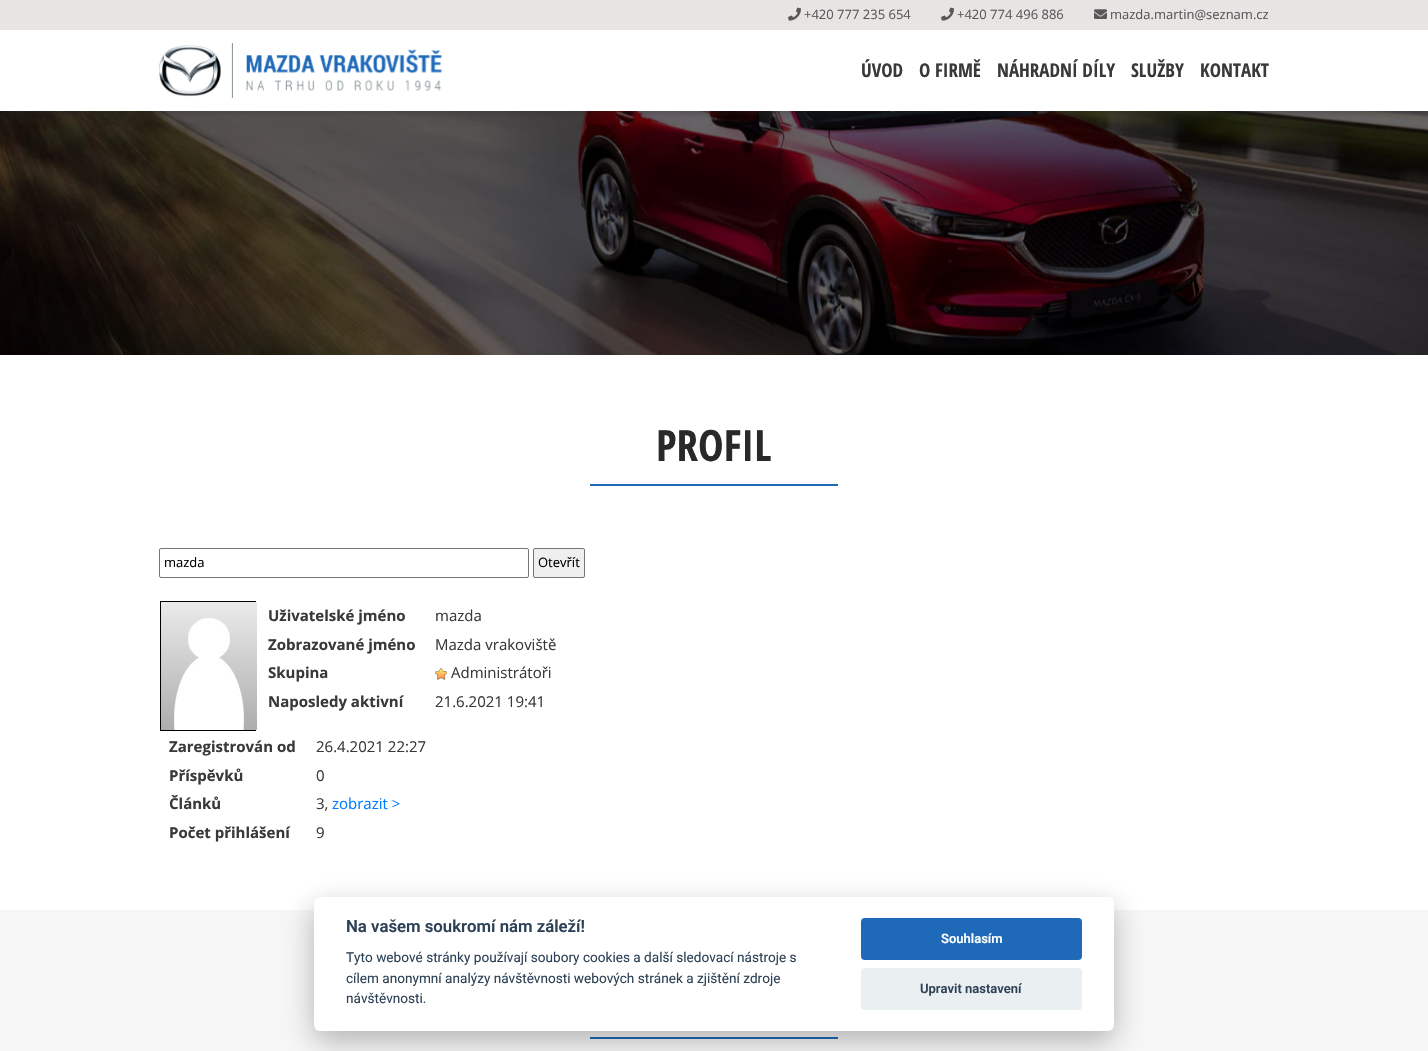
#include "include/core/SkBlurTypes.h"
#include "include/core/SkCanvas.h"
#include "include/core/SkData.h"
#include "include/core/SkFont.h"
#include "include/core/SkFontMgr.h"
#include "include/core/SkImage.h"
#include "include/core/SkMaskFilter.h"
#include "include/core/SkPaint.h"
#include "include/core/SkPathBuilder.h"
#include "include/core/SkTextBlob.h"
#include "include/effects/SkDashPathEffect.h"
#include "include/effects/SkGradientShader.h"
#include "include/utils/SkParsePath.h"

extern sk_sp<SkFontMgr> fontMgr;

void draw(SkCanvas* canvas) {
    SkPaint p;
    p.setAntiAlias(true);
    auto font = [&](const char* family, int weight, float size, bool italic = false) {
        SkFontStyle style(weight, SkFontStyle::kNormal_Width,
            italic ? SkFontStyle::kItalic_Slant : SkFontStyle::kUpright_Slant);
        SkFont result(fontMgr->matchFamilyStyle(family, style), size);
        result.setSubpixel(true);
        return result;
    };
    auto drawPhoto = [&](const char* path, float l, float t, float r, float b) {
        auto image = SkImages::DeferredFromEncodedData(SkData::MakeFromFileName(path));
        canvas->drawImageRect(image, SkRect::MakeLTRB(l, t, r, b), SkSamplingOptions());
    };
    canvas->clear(0xFFFFFFFF);
    drawPhoto("media/4.png", 0, 111, 1428, 355);
    p.setColor(0x4D212221);
    p.setMaskFilter(SkMaskFilter::MakeBlur(kNormal_SkBlurStyle, 3.5f));
    canvas->drawRect(SkRect::MakeLTRB(2, 2, 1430, 113), p);
    p.setMaskFilter(nullptr);
    p.setColor(0xFFFFFFFF);
    canvas->drawRect(SkRect::MakeLTRB(0, 30, 1428, 111), p);
    p.setColor(0xFFE8E4E4);
    canvas->drawRect(SkRect::MakeLTRB(0, 0, 1428, 30), p);
    drawPhoto("media/1.png", 788, 7, 801, 21);
    auto font1 = font("Open Sans", 400, 13);
    p.setColor(0xFF595858);
    canvas->drawString("+420 777 235 654", 804, 19, font1, p);
    drawPhoto("media/1.png", 941, 7, 954, 21);
    canvas->drawString("+420 774 496 886", 957, 19, font1, p);
    drawPhoto("media/2.png", 1094, 9, 1107, 19);
    canvas->drawString("mazda.martin@seznam.cz", 1110, 19, font1, p);
    drawPhoto("media/3.png", 159, 42, 442, 98);
    auto font2 = font("Open Sans Condensed", 700, 19);
    p.setColor(0xFF393939);
    {
        const struct { const char* s; float x, y; } items[] = {
            {"ÚVOD", 861, 77},
            {"O FIRMĚ", 919, 77},
            {"NÁHRADNÍ DÍLY", 997, 77},
            {"SLUŽBY", 1131, 77},
            {"KONTAKT", 1200, 77},
        };
        for (auto [s, x, y] : items) {
            canvas->drawString(s, x, y, font2, p);
        }
    }
    p.setColor(0xFF1E6AB8);
    canvas->drawRect(SkRect::MakeLTRB(590, 484, 838, 486), p);
    auto font3 = font("Open Sans Condensed", 700, 43);
    p.setColor(0xFF292929);
    canvas->drawString("PROFIL", 656, 461, font3, p);
    p.setStyle(SkPaint::kStroke_Style);
    p.setStrokeWidth(1);
    p.setColor(0xFF767676);
    canvas->drawRoundRect(SkRect::MakeLTRB(159.5f, 548.5f, 528.5f, 577.5f), 1.5f, 1.5f, p);
    p.setStyle(SkPaint::kFill_Style);
    p.setColor(0xFF000000);
    canvas->drawString("mazda", 164, 567, font1, p);
    p.setColor(0xFFEFEFEF);
    canvas->drawRoundRect(SkRect::MakeLTRB(533.5f, 548.5f, 584.5f, 577.5f), 1.5f, 1.5f, p);
    p.setStyle(SkPaint::kStroke_Style);
    p.setColor(0xFF767676);
    canvas->drawRoundRect(SkRect::MakeLTRB(533.5f, 548.5f, 584.5f, 577.5f), 1.5f, 1.5f, p);
    p.setStyle(SkPaint::kFill_Style);
    p.setColor(0xFF000000);
    canvas->drawString("Otevřít", 538, 567, font1, p);
    p.setStyle(SkPaint::kStroke_Style);
    canvas->drawRect(SkRect::MakeLTRB(160.5f, 601.5f, 255.5f, 730.5f), p);
    drawPhoto("media/5.png", 161, 602, 257, 730);
    auto font4 = font("Open Sans", 700, 15);
    p.setStyle(SkPaint::kFill_Style);
    p.setColor(0xFF393939);
    canvas->drawString("Uživatelské jméno", 268, 621, font4, p);
    auto font5 = font("Open Sans", 400, 15);
    canvas->drawString("mazda", 435, 621, font5, p);
    canvas->drawString("Zobrazované jméno", 268, 650, font4, p);
    canvas->drawString("Mazda vrakoviště", 435, 650, font5, p);
    canvas->drawString("Skupina", 268, 678, font4, p);
    drawPhoto("media/6.png", 435, 668, 447, 680);
    canvas->drawString("Administrátoři", 451, 678, font5, p);
    canvas->drawString("Naposledy aktivní", 268, 707, font4, p);
    canvas->drawString("21.6.2021 19:41", 435, 707, font5, p);
    canvas->drawString("Zaregistrován od", 169, 752, font4, p);
    canvas->drawString("26.4.2021 22:27", 316, 752, font5, p);
    canvas->drawString("Příspěvků", 169, 781, font4, p);
    canvas->drawString("0", 316, 781, font5, p);
    canvas->drawString("Článků", 169, 809, font4, p);
    canvas->drawString("3,", 316, 809, font5, p);
    p.setColor(0xFF007BFF);
    canvas->drawString("zobrazit >", 332, 809, font5, p);
    p.setColor(0xFF393939);
    canvas->drawString("Počet přihlášení", 169, 838, font4, p);
    canvas->drawString("9", 316, 838, font5, p);
    p.setColor(0xFFF6F6F7);
    canvas->drawRect(SkRect::MakeLTRB(0, 910, 1428, 1051), p);
    p.setColor(0xFF1E6AB8);
    canvas->drawRect(SkRect::MakeLTRB(590, 1037, 838, 1039), p);
    p.setColor(0x47020203);
    p.setMaskFilter(SkMaskFilter::MakeBlur(kNormal_SkBlurStyle, 15));
    canvas->drawRoundRect(SkRect::MakeLTRB(314, 907, 1114, 1041), 6, 6, p);
    p.setMaskFilter(nullptr);
    p.setColor(0xFFFFFFFF);
    canvas->drawRoundRect(SkRect::MakeLTRB(314, 897, 1114, 1031), 6, 6, p);
    auto font6 = font("Roboto", 600, 16.75f);
    p.setColor(0xFF2D4156);
    canvas->drawString("Na vašem soukromí nám záleží!", 346, 932, font6, p);
    auto font7 = font("Roboto", 400, 13.6f);
    {
        const struct { const char* s; float x, y; } items[] = {
            {"Tyto webové stránky používají soubory cookies a další sledovací nástroje s", 346, 962},
            {"cílem anonymní analýzy návštěvnosti webových stránek a zjištění zdroje", 346, 983},
            {"návštěvnosti.", 346, 1003},
        };
        for (auto [s, x, y] : items) {
            canvas->drawString(s, x, y, font7, p);
        }
    }
    p.setColor(0xFF1E69B8);
    canvas->drawRoundRect(SkRect::MakeLTRB(861, 918, 1082, 960), 4, 4, p);
    auto font8 = font("Roboto", 600, 13);
    p.setColor(0xFFFFFFFF);
    canvas->drawString("Souhlasím", 941, 943, font8, p);
    p.setColor(0xFFEAEFF2);
    canvas->drawRoundRect(SkRect::MakeLTRB(861, 968, 1082, 1010), 4, 4, p);
    p.setColor(0xFF2D4156);
    canvas->drawString("Upravit nastavení", 920, 993, font8, p);
}
